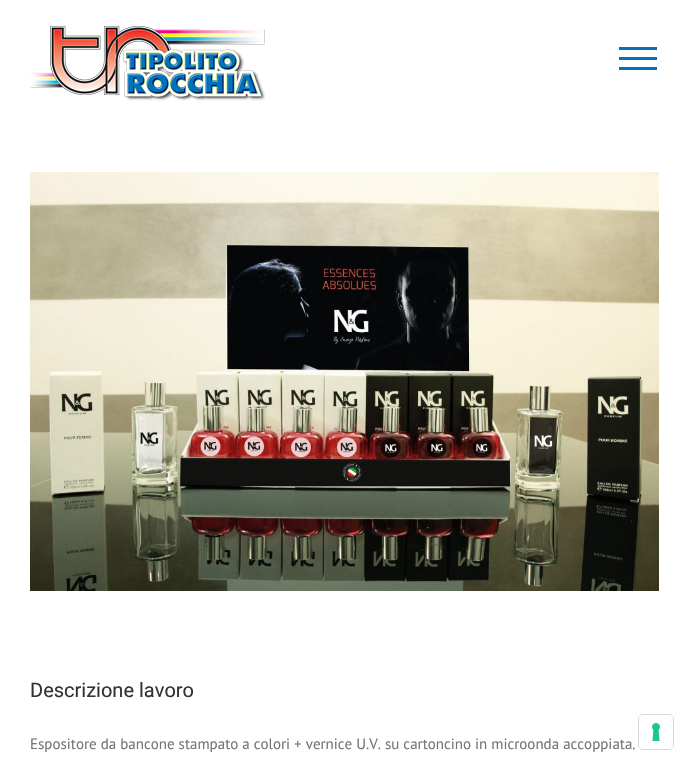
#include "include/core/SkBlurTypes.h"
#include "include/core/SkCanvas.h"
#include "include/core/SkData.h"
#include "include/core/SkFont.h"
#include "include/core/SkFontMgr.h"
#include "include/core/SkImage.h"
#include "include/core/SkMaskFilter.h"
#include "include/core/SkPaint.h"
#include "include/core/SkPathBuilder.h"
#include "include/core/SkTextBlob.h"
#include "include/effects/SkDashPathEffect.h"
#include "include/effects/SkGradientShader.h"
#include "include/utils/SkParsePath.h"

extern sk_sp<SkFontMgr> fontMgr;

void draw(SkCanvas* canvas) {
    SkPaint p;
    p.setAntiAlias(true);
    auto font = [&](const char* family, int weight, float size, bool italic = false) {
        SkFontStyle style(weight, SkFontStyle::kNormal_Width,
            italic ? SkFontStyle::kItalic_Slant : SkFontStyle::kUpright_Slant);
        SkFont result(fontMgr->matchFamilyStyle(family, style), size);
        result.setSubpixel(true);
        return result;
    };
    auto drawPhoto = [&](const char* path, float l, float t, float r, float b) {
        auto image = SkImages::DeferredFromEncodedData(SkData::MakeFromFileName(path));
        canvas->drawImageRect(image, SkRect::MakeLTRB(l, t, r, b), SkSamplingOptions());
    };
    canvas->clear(0xFFFFFFFF);
    drawPhoto("media/1.png", 31, 26, 266, 101);
    {
        const struct { float l, t, r, b; SkColor color; } items[] = {
            {619, 47, 657, 50, 0xFF0072BC},
            {619, 57, 657, 60, 0xFF0072BC},
            {619, 67, 657, 70, 0xFF0072BC},
        };
        for (auto [l, t, r, b, color] : items) {
            p.setColor(color);
            canvas->drawRect(SkRect::MakeLTRB(l, t, r, b), p);
        }
    }
    drawPhoto("media/2.png", 30, 172, 659, 591);
    auto font1 = font("Roboto", 400, 20);
    p.setColor(0xFF333333);
    canvas->drawString("Descrizione lavoro", 30, 697, font1, p);
    auto font2 = font("PT Sans", 400, 15);
    p.setColor(0xFF747474);
    canvas->drawString("Espositore da bancone stampato a colori + vernice U.V. su cartoncino in microonda accoppiata.", 30, 749, font2, p);
    p.setStyle(SkPaint::kStroke_Style);
    p.setStrokeWidth(1);
    p.setColor(0xFFD9D9D9);
    canvas->drawRoundRect(SkRect::MakeLTRB(638.5f, 714.5f, 673.5f, 749.5f), 4.5f, 4.5f, p);
    p.setStyle(SkPaint::kFill_Style);
    p.setColor(0xFFFFFFFF);
    canvas->drawRoundRect(SkRect::MakeLTRB(639, 715, 673, 749), 4, 4, p);
    drawPhoto("media/3.png", 652, 723, 660, 741);
}
